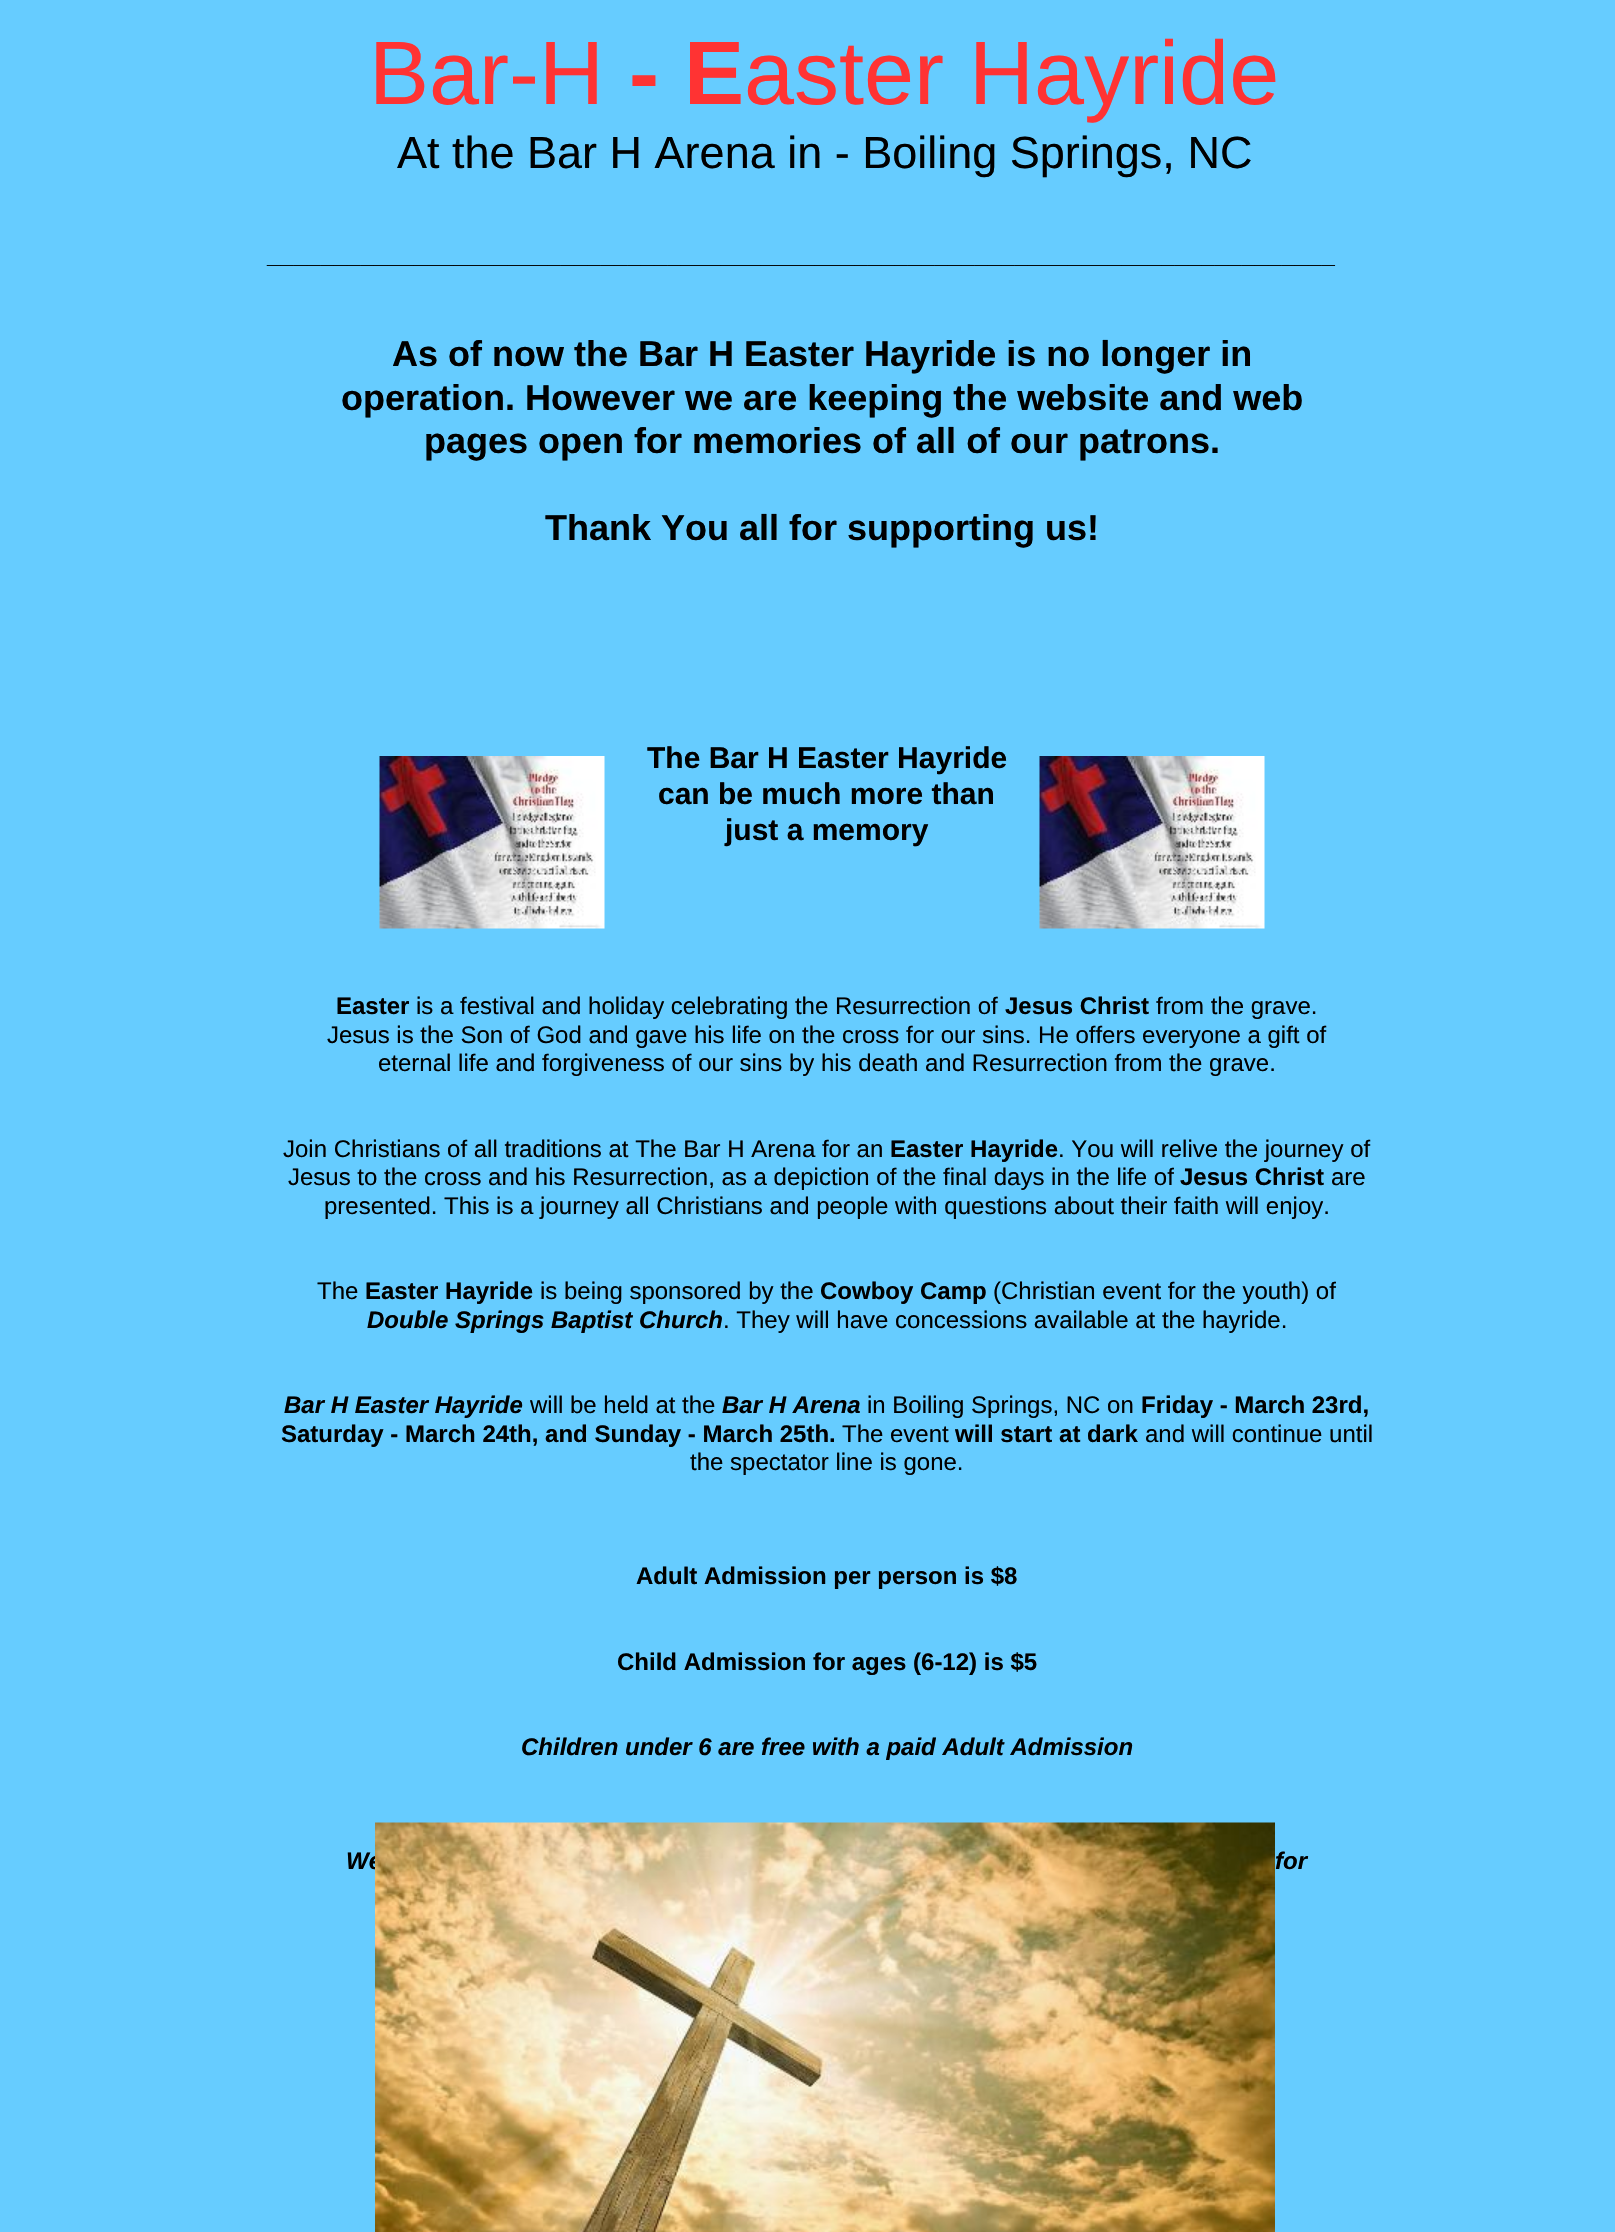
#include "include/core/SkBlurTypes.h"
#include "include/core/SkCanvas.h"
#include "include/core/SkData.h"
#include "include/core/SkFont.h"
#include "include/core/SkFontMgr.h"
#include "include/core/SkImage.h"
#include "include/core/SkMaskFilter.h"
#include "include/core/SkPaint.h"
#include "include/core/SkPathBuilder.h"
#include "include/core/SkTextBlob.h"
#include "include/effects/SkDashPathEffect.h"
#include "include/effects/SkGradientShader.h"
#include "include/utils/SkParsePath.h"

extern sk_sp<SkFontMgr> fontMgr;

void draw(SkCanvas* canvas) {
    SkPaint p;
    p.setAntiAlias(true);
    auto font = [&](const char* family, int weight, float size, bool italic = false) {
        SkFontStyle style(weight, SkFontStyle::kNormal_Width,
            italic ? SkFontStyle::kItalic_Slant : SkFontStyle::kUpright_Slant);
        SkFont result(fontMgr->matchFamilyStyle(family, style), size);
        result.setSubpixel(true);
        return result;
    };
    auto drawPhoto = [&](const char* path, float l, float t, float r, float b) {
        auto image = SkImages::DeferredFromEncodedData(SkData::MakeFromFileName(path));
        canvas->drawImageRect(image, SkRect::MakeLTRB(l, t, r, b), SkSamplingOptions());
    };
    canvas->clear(0xFF66CCFF);
    auto font1 = font("Liberation Sans", 400, 90);
    p.setColor(0xFFFF3333);
    canvas->drawString("Bar-H", 369, 104, font1, p);
    auto font2 = font("Liberation Sans", 700, 90);
    canvas->drawString("- E", 629, 104, font2, p);
    canvas->drawString("aster Hayride", 744, 104, font1, p);
    auto font3 = font("Liberation Sans", 400, 45);
    p.setColor(0xFF000000);
    canvas->drawString("At the Bar H Arena in - Boiling Springs, NC", 397, 168, font3, p);
    auto font4 = font("Liberation Sans", 700, 24);
    canvas->drawString("________________________________________________________________________________", 267, 263, font4, p);
    auto font5 = font("Liberation Sans", 700, 36);
    {
        const struct { const char* s; float x, y; } items[] = {
            {"As of now the Bar H Easter Hayride is no longer in", 392, 366},
            {"operation. However we are keeping the website and web", 341, 410},
            {"pages open for memories of all of our patrons.", 424, 453},
            {"Thank You all for supporting us!", 545, 540},
        };
        for (auto [s, x, y] : items) {
            canvas->drawString(s, x, y, font5, p);
        }
    }
    auto font6 = font("Liberation Sans", 700, 30);
    {
        const struct { const char* s; float x, y; } items[] = {
            {"The Bar H Easter Hayride", 647, 768},
            {"can be much more than", 658, 804},
            {"just a memory", 725, 840},
        };
        for (auto [s, x, y] : items) {
            canvas->drawString(s, x, y, font6, p);
        }
    }
    canvas->drawString("Easter", 336, 1014, font4, p);
    auto font7 = font("Liberation Sans", 400, 24);
    canvas->drawString("is a festival and holiday celebrating the Resurrection of", 416, 1014, font7, p);
    canvas->drawString("Jesus Christ", 1005, 1014, font4, p);
    {
        const struct { const char* s; float x, y; } items[] = {
            {"from the grave.", 1156, 1014},
            {"Jesus is the Son of God and gave his life on the cross for our sins. He offers everyone a gift of", 327, 1043},
            {"eternal life and forgiveness of our sins by his death and Resurrection from the grave.", 378, 1071},
            {"Join Christians of all traditions at The Bar H Arena for an", 283, 1157},
        };
        for (auto [s, x, y] : items) {
            canvas->drawString(s, x, y, font7, p);
        }
    }
    canvas->drawString("Easter Hayride", 890, 1157, font4, p);
    canvas->drawString(". You will relive the journey of", 1058, 1157, font7, p);
    canvas->drawString("Jesus to the cross and his Resurrection, as a depiction of the final days in the life of", 288, 1185, font7, p);
    canvas->drawString("Jesus Christ", 1180, 1185, font4, p);
    {
        const struct { const char* s; float x, y; } items[] = {
            {"are", 1331, 1185},
            {"presented. This is a journey all Christians and people with questions about their faith will enjoy.", 324, 1214},
            {"The", 317, 1299},
        };
        for (auto [s, x, y] : items) {
            canvas->drawString(s, x, y, font7, p);
        }
    }
    canvas->drawString("Easter Hayride", 365, 1299, font4, p);
    canvas->drawString("is being sponsored by the", 540, 1299, font7, p);
    canvas->drawString("Cowboy Camp", 820, 1299, font4, p);
    canvas->drawString("(Christian event for the youth) of", 993, 1299, font7, p);
    auto font8 = font("Liberation Sans", 700, 24, true);
    canvas->drawString("Double Springs Baptist Church", 367, 1328, font8, p);
    canvas->drawString(". They will have concessions available at the hayride.", 723, 1328, font7, p);
    canvas->drawString("Bar H Easter Hayride", 284, 1413, font8, p);
    canvas->drawString("will be held at the", 530, 1413, font7, p);
    canvas->drawString("Bar H Arena", 722, 1413, font8, p);
    canvas->drawString("in Boiling Springs, NC on", 867, 1413, font7, p);
    canvas->drawString("Friday - March 23rd,", 1141, 1413, font4, p);
    canvas->drawString("Saturday - March 24th, and Sunday - March 25th.", 281, 1442, font4, p);
    canvas->drawString("The event", 842, 1442, font7, p);
    canvas->drawString("will start at dark", 955, 1442, font4, p);
    canvas->drawString("and will continue until", 1145, 1442, font7, p);
    canvas->drawString("the spectator line is gone.", 690, 1470, font7, p);
    canvas->drawString("Adult Admission per person is $8", 636, 1584, font4, p);
    canvas->drawString("Child Admission for ages (6-12) is $5", 617, 1670, font4, p);
    {
        const struct { const char* s; float x, y; } items[] = {
            {"Children under 6 are free with a paid Adult Admission", 521, 1755},
            {"We", 346, 1869},
            {"for", 1275, 1869},
        };
        for (auto [s, x, y] : items) {
            canvas->drawString(s, x, y, font8, p);
        }
    }
    drawPhoto("media/1.png", 379, 756, 605, 929);
    drawPhoto("media/2.png", 1039, 756, 1265, 929);
    drawPhoto("media/3.png", 375, 1822, 1275, 2232);
}
